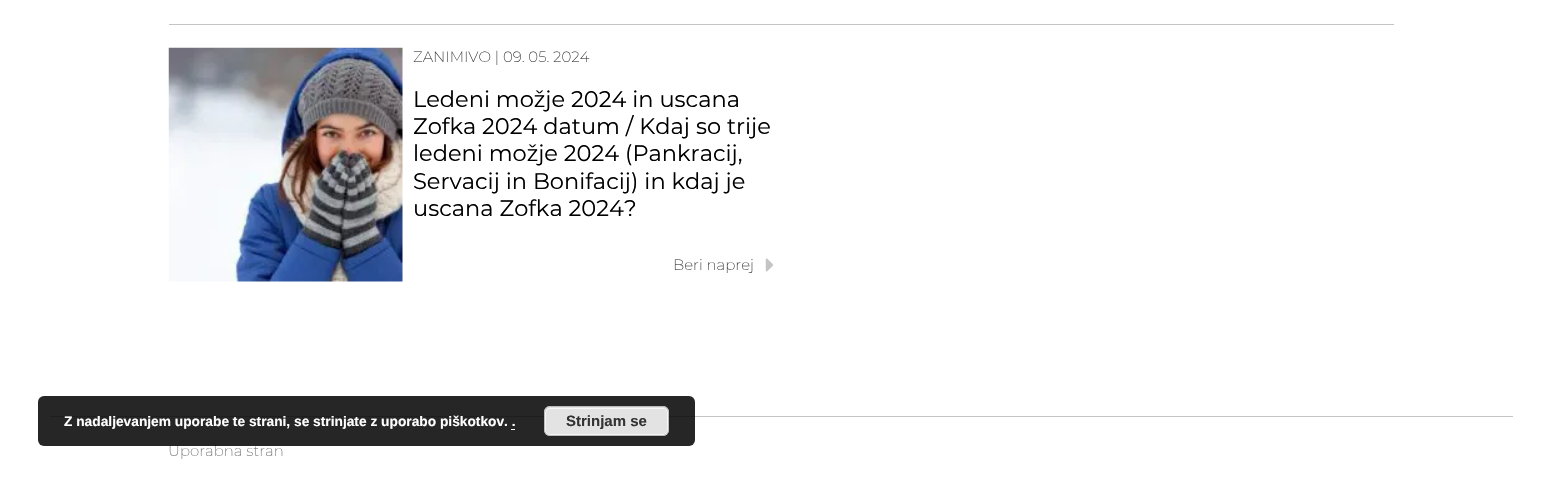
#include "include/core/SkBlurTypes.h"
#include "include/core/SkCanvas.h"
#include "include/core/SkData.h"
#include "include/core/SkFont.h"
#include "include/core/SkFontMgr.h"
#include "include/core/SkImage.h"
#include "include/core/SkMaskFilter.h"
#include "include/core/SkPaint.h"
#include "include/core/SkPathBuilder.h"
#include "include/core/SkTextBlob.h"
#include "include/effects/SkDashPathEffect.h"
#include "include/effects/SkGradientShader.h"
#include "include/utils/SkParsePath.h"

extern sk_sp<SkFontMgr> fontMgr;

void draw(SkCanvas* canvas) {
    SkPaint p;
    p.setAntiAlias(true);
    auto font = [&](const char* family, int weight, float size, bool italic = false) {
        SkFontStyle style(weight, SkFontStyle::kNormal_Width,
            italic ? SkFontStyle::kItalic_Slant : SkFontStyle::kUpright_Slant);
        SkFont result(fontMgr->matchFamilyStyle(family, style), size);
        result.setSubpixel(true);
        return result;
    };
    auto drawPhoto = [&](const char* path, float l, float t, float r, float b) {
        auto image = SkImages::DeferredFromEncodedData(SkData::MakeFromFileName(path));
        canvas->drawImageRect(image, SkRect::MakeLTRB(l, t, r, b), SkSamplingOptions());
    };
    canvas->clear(0xFFFFFFFF);
    p.setColor(0xFFC4C4C4);
    canvas->drawRect(SkRect::MakeLTRB(169, 24, 1394, 25), p);
    drawPhoto("media/1.png", 168, 47, 403, 282);
    auto font1 = font("Montserrat", 200, 15);
    p.setColor(0xFF333333);
    canvas->drawString("ZANIMIVO | 09. 05. 2024", 413, 62, font1, p);
    auto font2 = font("Montserrat", 400, 22.5f);
    p.setColor(0xFF000000);
    {
        const struct { const char* s; float x, y; } items[] = {
            {"Ledeni možje 2024 in uscana", 413, 107},
            {"Zofka 2024 datum / Kdaj so trije", 413, 134},
            {"ledeni možje 2024 (Pankracij,", 413, 161},
            {"Servacij in Bonifacij) in kdaj je", 413, 189},
            {"uscana Zofka 2024?", 413, 216},
        };
        for (auto [s, x, y] : items) {
            canvas->drawString(s, x, y, font2, p);
        }
    }
    p.setColor(0xFF333333);
    canvas->drawString("Beri naprej", 673, 270, font1, p);
    drawPhoto("media/2.png", 765, 258, 773, 272);
    p.setColor(0xFFC4C4C4);
    canvas->drawRect(SkRect::MakeLTRB(50, 416, 1513, 417), p);
    p.setColor(0xFF716E6E);
    canvas->drawString("Uporabna stran", 168, 456, font1, p);
    p.setColor(0xD9000000);
    canvas->drawRoundRect(SkRect::MakeLTRB(38, 396, 695, 446), 6, 6, p);
    auto font3 = font("Liberation Sans", 700, 13.75f);
    p.setColor(0xFFFFFFFF);
    canvas->drawString("Z nadaljevanjem uporabe te strani, se strinjate z uporabo piškotkov. .", 64, 426, font3, p);
    p.setColor(0xFFE3E3E3);
    canvas->drawRoundRect(SkRect::MakeLTRB(544, 406, 669, 436), 6, 6, p);
    p.setStyle(SkPaint::kStroke_Style);
    p.setStrokeWidth(1);
    p.setColor(0xFFF6F6F6);
    canvas->drawRoundRect(SkRect::MakeLTRB(545.5f, 408.5f, 667.5f, 434.5f), 4.5f, 4.5f, p);
    p.setColor(0xFFBBBBBB);
    canvas->drawRoundRect(SkRect::MakeLTRB(544.5f, 406.5f, 668.5f, 435.5f), 5.5f, 5.5f, p);
    auto font4 = font("Liberation Sans", 700, 15);
    p.setStyle(SkPaint::kFill_Style);
    p.setColor(0xFF333333);
    canvas->drawString("Strinjam se", 566, 426, font4, p);
    p.setColor(0xFFFFFFFF);
    canvas->drawRect(SkRect::MakeLTRB(511, 429, 515, 430), p);
}
